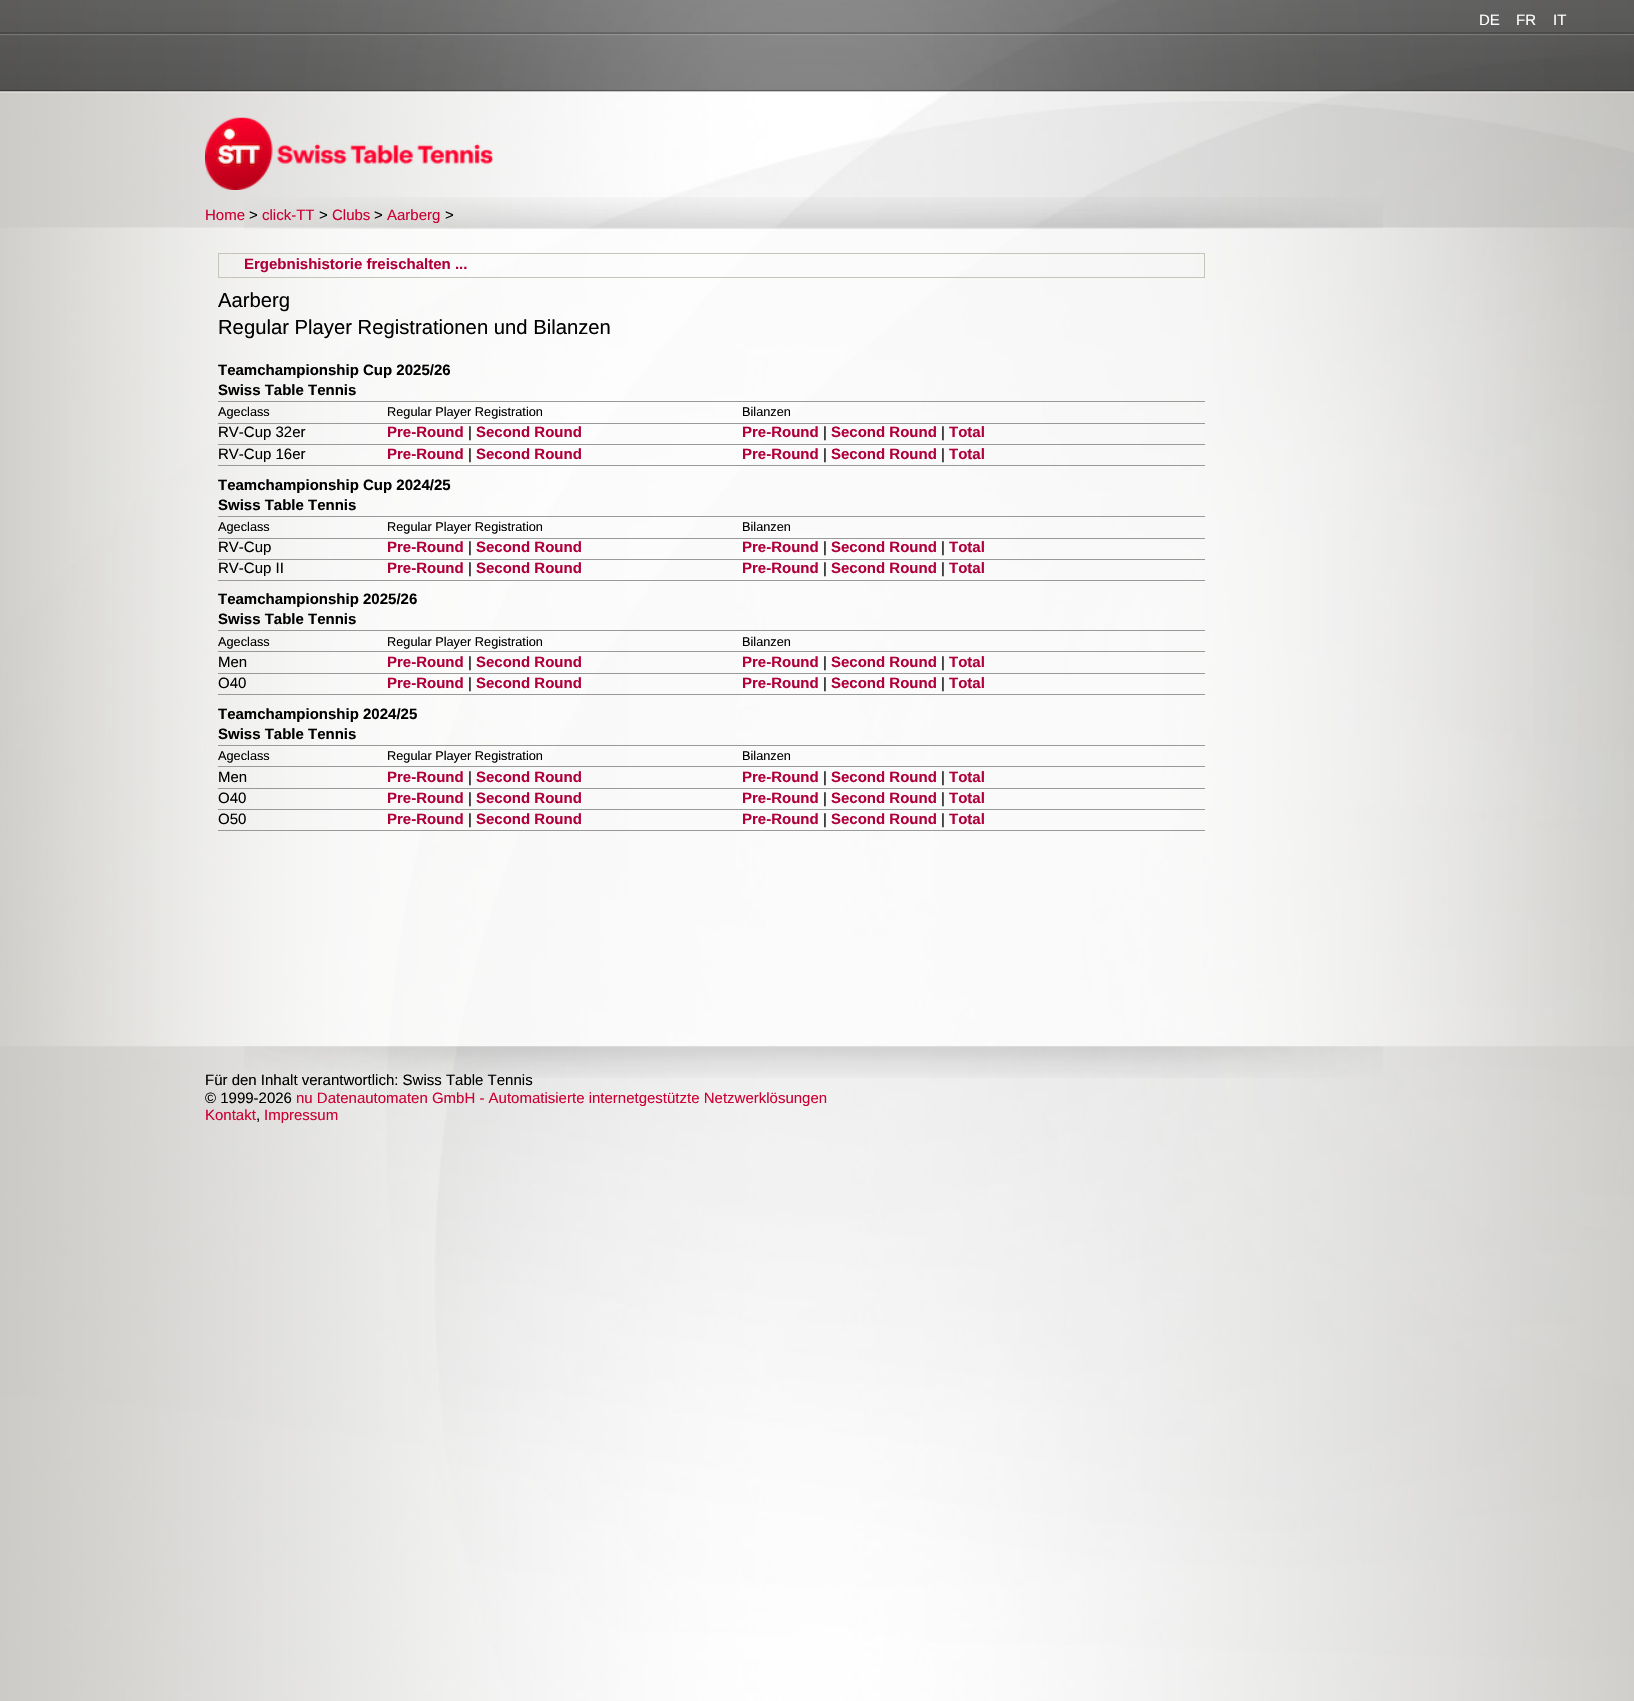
#include "include/core/SkBlurTypes.h"
#include "include/core/SkCanvas.h"
#include "include/core/SkData.h"
#include "include/core/SkFont.h"
#include "include/core/SkFontMgr.h"
#include "include/core/SkImage.h"
#include "include/core/SkMaskFilter.h"
#include "include/core/SkPaint.h"
#include "include/core/SkPathBuilder.h"
#include "include/core/SkTextBlob.h"
#include "include/effects/SkDashPathEffect.h"
#include "include/effects/SkGradientShader.h"
#include "include/utils/SkParsePath.h"

extern sk_sp<SkFontMgr> fontMgr;

void draw(SkCanvas* canvas) {
    SkPaint p;
    p.setAntiAlias(true);
    auto font = [&](const char* family, int weight, float size, bool italic = false) {
        SkFontStyle style(weight, SkFontStyle::kNormal_Width,
            italic ? SkFontStyle::kItalic_Slant : SkFontStyle::kUpright_Slant);
        SkFont result(fontMgr->matchFamilyStyle(family, style), size);
        result.setSubpixel(true);
        return result;
    };
    auto drawPhoto = [&](const char* path, float l, float t, float r, float b) {
        auto image = SkImages::DeferredFromEncodedData(SkData::MakeFromFileName(path));
        canvas->drawImageRect(image, SkRect::MakeLTRB(l, t, r, b), SkSamplingOptions());
    };
    canvas->clear(0xFFFFFFFF);
    drawPhoto("media/1.png", 0, 0, 1634, 1701);
    drawPhoto("media/2.png", 0, 0, 1634, 93);
    drawPhoto("media/3.png", 0, 227, 1634, 1047);
    auto font1 = font("Liberation Sans", 400, 15);
    p.setColor(0xFFFFFFFF);
    {
        const struct { const char* s; float x, y; } items[] = {
            {"DE", 1479, 25},
            {"FR", 1516, 25},
            {"IT", 1553, 25},
        };
        for (auto [s, x, y] : items) {
            canvas->drawString(s, x, y, font1, p);
        }
    }
    drawPhoto("media/4.png", 244, 197, 1383, 229);
    drawPhoto("media/5.png", 205, 117, 493, 190);
    p.setColor(0xFFCC0033);
    canvas->drawString("Home", 205, 220, font1, p);
    p.setColor(0xFF000000);
    canvas->drawString(">", 249, 220, font1, p);
    p.setColor(0xFFCC0033);
    canvas->drawString("click-TT", 262, 220, font1, p);
    p.setColor(0xFF000000);
    canvas->drawString(">", 319, 220, font1, p);
    p.setColor(0xFFCC0033);
    canvas->drawString("Clubs", 332, 220, font1, p);
    p.setColor(0xFF000000);
    canvas->drawString(">", 374, 220, font1, p);
    p.setColor(0xFFCC0033);
    canvas->drawString("Aarberg", 387, 220, font1, p);
    p.setColor(0xFF000000);
    canvas->drawString(">", 445, 220, font1, p);
    p.setStyle(SkPaint::kStroke_Style);
    p.setStrokeWidth(1);
    p.setColor(0xFFC5C4B9);
    canvas->drawRect(SkRect::MakeLTRB(218.5f, 253.5f, 1204.5f, 277.5f), p);
    auto font2 = font("Liberation Sans", 700, 15);
    p.setStyle(SkPaint::kFill_Style);
    p.setColor(0xFFB0003C);
    canvas->drawString("Ergebnishistorie freischalten ...", 244, 269, font2, p);
    auto font3 = font("Liberation Sans", 400, 20.25f);
    p.setColor(0xFF000000);
    canvas->drawString("Aarberg", 218, 307, font3, p);
    canvas->drawString("Regular Player Registrationen und Bilanzen", 218, 334, font3, p);
    p.setColor(0xFF999999);
    canvas->drawRect(SkRect::MakeLTRB(218, 401, 1205, 402), p);
    p.setColor(0xFF000000);
    canvas->drawString("Teamchampionship Cup 2025/26", 218, 375, font2, p);
    canvas->drawString("Swiss Table Tennis", 218, 395, font2, p);
    p.setColor(0xFF999999);
    canvas->drawRect(SkRect::MakeLTRB(218, 423, 1205, 424), p);
    auto font4 = font("Liberation Sans", 400, 12.75f);
    p.setColor(0xFF000000);
    {
        const struct { const char* s; float x, y; } items[] = {
            {"Ageclass", 218, 416},
            {"Regular Player Registration", 387, 416},
            {"Bilanzen", 742, 416},
        };
        for (auto [s, x, y] : items) {
            canvas->drawString(s, x, y, font4, p);
        }
    }
    p.setColor(0xFF999999);
    canvas->drawRect(SkRect::MakeLTRB(218, 444, 1205, 445), p);
    p.setColor(0xFF000000);
    canvas->drawString("RV-Cup 32er", 218, 437, font1, p);
    p.setColor(0xFFB0003C);
    canvas->drawString("Pre-Round", 387, 437, font2, p);
    p.setColor(0xFF000000);
    canvas->drawString("|", 468, 437, font1, p);
    p.setColor(0xFFB0003C);
    canvas->drawString("Second Round", 476, 437, font2, p);
    canvas->drawString("Pre-Round", 742, 437, font2, p);
    p.setColor(0xFF000000);
    canvas->drawString("|", 823, 437, font1, p);
    p.setColor(0xFFB0003C);
    canvas->drawString("Second Round", 831, 437, font2, p);
    p.setColor(0xFF000000);
    canvas->drawString("|", 941, 437, font1, p);
    p.setColor(0xFFB0003C);
    canvas->drawString("Total", 949, 437, font2, p);
    p.setColor(0xFF999999);
    canvas->drawRect(SkRect::MakeLTRB(218, 465, 1205, 466), p);
    p.setColor(0xFF000000);
    canvas->drawString("RV-Cup 16er", 218, 459, font1, p);
    p.setColor(0xFFB0003C);
    canvas->drawString("Pre-Round", 387, 459, font2, p);
    p.setColor(0xFF000000);
    canvas->drawString("|", 468, 459, font1, p);
    p.setColor(0xFFB0003C);
    canvas->drawString("Second Round", 476, 459, font2, p);
    canvas->drawString("Pre-Round", 742, 459, font2, p);
    p.setColor(0xFF000000);
    canvas->drawString("|", 823, 459, font1, p);
    p.setColor(0xFFB0003C);
    canvas->drawString("Second Round", 831, 459, font2, p);
    p.setColor(0xFF000000);
    canvas->drawString("|", 941, 459, font1, p);
    p.setColor(0xFFB0003C);
    canvas->drawString("Total", 949, 459, font2, p);
    p.setColor(0xFF999999);
    canvas->drawRect(SkRect::MakeLTRB(218, 516, 1205, 517), p);
    p.setColor(0xFF000000);
    canvas->drawString("Teamchampionship Cup 2024/25", 218, 490, font2, p);
    canvas->drawString("Swiss Table Tennis", 218, 510, font2, p);
    p.setColor(0xFF999999);
    canvas->drawRect(SkRect::MakeLTRB(218, 538, 1205, 539), p);
    p.setColor(0xFF000000);
    {
        const struct { const char* s; float x, y; } items[] = {
            {"Ageclass", 218, 531},
            {"Regular Player Registration", 387, 531},
            {"Bilanzen", 742, 531},
        };
        for (auto [s, x, y] : items) {
            canvas->drawString(s, x, y, font4, p);
        }
    }
    p.setColor(0xFF999999);
    canvas->drawRect(SkRect::MakeLTRB(218, 559, 1205, 560), p);
    p.setColor(0xFF000000);
    canvas->drawString("RV-Cup", 218, 552, font1, p);
    p.setColor(0xFFB0003C);
    canvas->drawString("Pre-Round", 387, 552, font2, p);
    p.setColor(0xFF000000);
    canvas->drawString("|", 468, 552, font1, p);
    p.setColor(0xFFB0003C);
    canvas->drawString("Second Round", 476, 552, font2, p);
    canvas->drawString("Pre-Round", 742, 552, font2, p);
    p.setColor(0xFF000000);
    canvas->drawString("|", 823, 552, font1, p);
    p.setColor(0xFFB0003C);
    canvas->drawString("Second Round", 831, 552, font2, p);
    p.setColor(0xFF000000);
    canvas->drawString("|", 941, 552, font1, p);
    p.setColor(0xFFB0003C);
    canvas->drawString("Total", 949, 552, font2, p);
    p.setColor(0xFF999999);
    canvas->drawRect(SkRect::MakeLTRB(218, 580, 1205, 581), p);
    p.setColor(0xFF000000);
    canvas->drawString("RV-Cup II", 218, 573, font1, p);
    p.setColor(0xFFB0003C);
    canvas->drawString("Pre-Round", 387, 573, font2, p);
    p.setColor(0xFF000000);
    canvas->drawString("|", 468, 573, font1, p);
    p.setColor(0xFFB0003C);
    canvas->drawString("Second Round", 476, 573, font2, p);
    canvas->drawString("Pre-Round", 742, 573, font2, p);
    p.setColor(0xFF000000);
    canvas->drawString("|", 823, 573, font1, p);
    p.setColor(0xFFB0003C);
    canvas->drawString("Second Round", 831, 573, font2, p);
    p.setColor(0xFF000000);
    canvas->drawString("|", 941, 573, font1, p);
    p.setColor(0xFFB0003C);
    canvas->drawString("Total", 949, 573, font2, p);
    p.setColor(0xFF999999);
    canvas->drawRect(SkRect::MakeLTRB(218, 630, 1205, 631), p);
    p.setColor(0xFF000000);
    canvas->drawString("Teamchampionship 2025/26", 218, 604, font2, p);
    canvas->drawString("Swiss Table Tennis", 218, 624, font2, p);
    p.setColor(0xFF999999);
    canvas->drawRect(SkRect::MakeLTRB(218, 651, 1205, 652), p);
    p.setColor(0xFF000000);
    {
        const struct { const char* s; float x, y; } items[] = {
            {"Ageclass", 218, 646},
            {"Regular Player Registration", 387, 646},
            {"Bilanzen", 742, 646},
        };
        for (auto [s, x, y] : items) {
            canvas->drawString(s, x, y, font4, p);
        }
    }
    p.setColor(0xFF999999);
    canvas->drawRect(SkRect::MakeLTRB(218, 673, 1205, 674), p);
    p.setColor(0xFF000000);
    canvas->drawString("Men", 218, 667, font1, p);
    p.setColor(0xFFB0003C);
    canvas->drawString("Pre-Round", 387, 667, font2, p);
    p.setColor(0xFF000000);
    canvas->drawString("|", 468, 667, font1, p);
    p.setColor(0xFFB0003C);
    canvas->drawString("Second Round", 476, 667, font2, p);
    canvas->drawString("Pre-Round", 742, 667, font2, p);
    p.setColor(0xFF000000);
    canvas->drawString("|", 823, 667, font1, p);
    p.setColor(0xFFB0003C);
    canvas->drawString("Second Round", 831, 667, font2, p);
    p.setColor(0xFF000000);
    canvas->drawString("|", 941, 667, font1, p);
    p.setColor(0xFFB0003C);
    canvas->drawString("Total", 949, 667, font2, p);
    p.setColor(0xFF999999);
    canvas->drawRect(SkRect::MakeLTRB(218, 694, 1205, 695), p);
    p.setColor(0xFF000000);
    canvas->drawString("O40", 218, 688, font1, p);
    p.setColor(0xFFB0003C);
    canvas->drawString("Pre-Round", 387, 688, font2, p);
    p.setColor(0xFF000000);
    canvas->drawString("|", 468, 688, font1, p);
    p.setColor(0xFFB0003C);
    canvas->drawString("Second Round", 476, 688, font2, p);
    canvas->drawString("Pre-Round", 742, 688, font2, p);
    p.setColor(0xFF000000);
    canvas->drawString("|", 823, 688, font1, p);
    p.setColor(0xFFB0003C);
    canvas->drawString("Second Round", 831, 688, font2, p);
    p.setColor(0xFF000000);
    canvas->drawString("|", 941, 688, font1, p);
    p.setColor(0xFFB0003C);
    canvas->drawString("Total", 949, 688, font2, p);
    p.setColor(0xFF999999);
    canvas->drawRect(SkRect::MakeLTRB(218, 745, 1205, 746), p);
    p.setColor(0xFF000000);
    canvas->drawString("Teamchampionship 2024/25", 218, 719, font2, p);
    canvas->drawString("Swiss Table Tennis", 218, 739, font2, p);
    p.setColor(0xFF999999);
    canvas->drawRect(SkRect::MakeLTRB(218, 766, 1205, 767), p);
    p.setColor(0xFF000000);
    {
        const struct { const char* s; float x, y; } items[] = {
            {"Ageclass", 218, 760},
            {"Regular Player Registration", 387, 760},
            {"Bilanzen", 742, 760},
        };
        for (auto [s, x, y] : items) {
            canvas->drawString(s, x, y, font4, p);
        }
    }
    p.setColor(0xFF999999);
    canvas->drawRect(SkRect::MakeLTRB(218, 788, 1205, 789), p);
    p.setColor(0xFF000000);
    canvas->drawString("Men", 218, 782, font1, p);
    p.setColor(0xFFB0003C);
    canvas->drawString("Pre-Round", 387, 782, font2, p);
    p.setColor(0xFF000000);
    canvas->drawString("|", 468, 782, font1, p);
    p.setColor(0xFFB0003C);
    canvas->drawString("Second Round", 476, 782, font2, p);
    canvas->drawString("Pre-Round", 742, 782, font2, p);
    p.setColor(0xFF000000);
    canvas->drawString("|", 823, 782, font1, p);
    p.setColor(0xFFB0003C);
    canvas->drawString("Second Round", 831, 782, font2, p);
    p.setColor(0xFF000000);
    canvas->drawString("|", 941, 782, font1, p);
    p.setColor(0xFFB0003C);
    canvas->drawString("Total", 949, 782, font2, p);
    p.setColor(0xFF999999);
    canvas->drawRect(SkRect::MakeLTRB(218, 809, 1205, 810), p);
    p.setColor(0xFF000000);
    canvas->drawString("O40", 218, 803, font1, p);
    p.setColor(0xFFB0003C);
    canvas->drawString("Pre-Round", 387, 803, font2, p);
    p.setColor(0xFF000000);
    canvas->drawString("|", 468, 803, font1, p);
    p.setColor(0xFFB0003C);
    canvas->drawString("Second Round", 476, 803, font2, p);
    canvas->drawString("Pre-Round", 742, 803, font2, p);
    p.setColor(0xFF000000);
    canvas->drawString("|", 823, 803, font1, p);
    p.setColor(0xFFB0003C);
    canvas->drawString("Second Round", 831, 803, font2, p);
    p.setColor(0xFF000000);
    canvas->drawString("|", 941, 803, font1, p);
    p.setColor(0xFFB0003C);
    canvas->drawString("Total", 949, 803, font2, p);
    p.setColor(0xFF999999);
    canvas->drawRect(SkRect::MakeLTRB(218, 830, 1205, 831), p);
    p.setColor(0xFF000000);
    canvas->drawString("O50", 218, 824, font1, p);
    p.setColor(0xFFB0003C);
    canvas->drawString("Pre-Round", 387, 824, font2, p);
    p.setColor(0xFF000000);
    canvas->drawString("|", 468, 824, font1, p);
    p.setColor(0xFFB0003C);
    canvas->drawString("Second Round", 476, 824, font2, p);
    canvas->drawString("Pre-Round", 742, 824, font2, p);
    p.setColor(0xFF000000);
    canvas->drawString("|", 823, 824, font1, p);
    p.setColor(0xFFB0003C);
    canvas->drawString("Second Round", 831, 824, font2, p);
    p.setColor(0xFF000000);
    canvas->drawString("|", 941, 824, font1, p);
    p.setColor(0xFFB0003C);
    canvas->drawString("Total", 949, 824, font2, p);
    drawPhoto("media/6.png", 244, 1046, 1383, 1078);
    p.setColor(0xFF000000);
    canvas->drawString("Für den Inhalt verantwortlich: Swiss Table Tennis", 205, 1085, font1, p);
    canvas->drawString("© 1999-2026", 205, 1103, font1, p);
    p.setColor(0xFFCC0033);
    canvas->drawString("nu Datenautomaten GmbH - Automatisierte internetgestützte Netzwerklösungen", 296, 1103, font1, p);
    canvas->drawString("Kontakt", 205, 1120, font1, p);
    p.setColor(0xFF000000);
    canvas->drawString(",", 256, 1120, font1, p);
    p.setColor(0xFFCC0033);
    canvas->drawString("Impressum", 264, 1120, font1, p);
}
